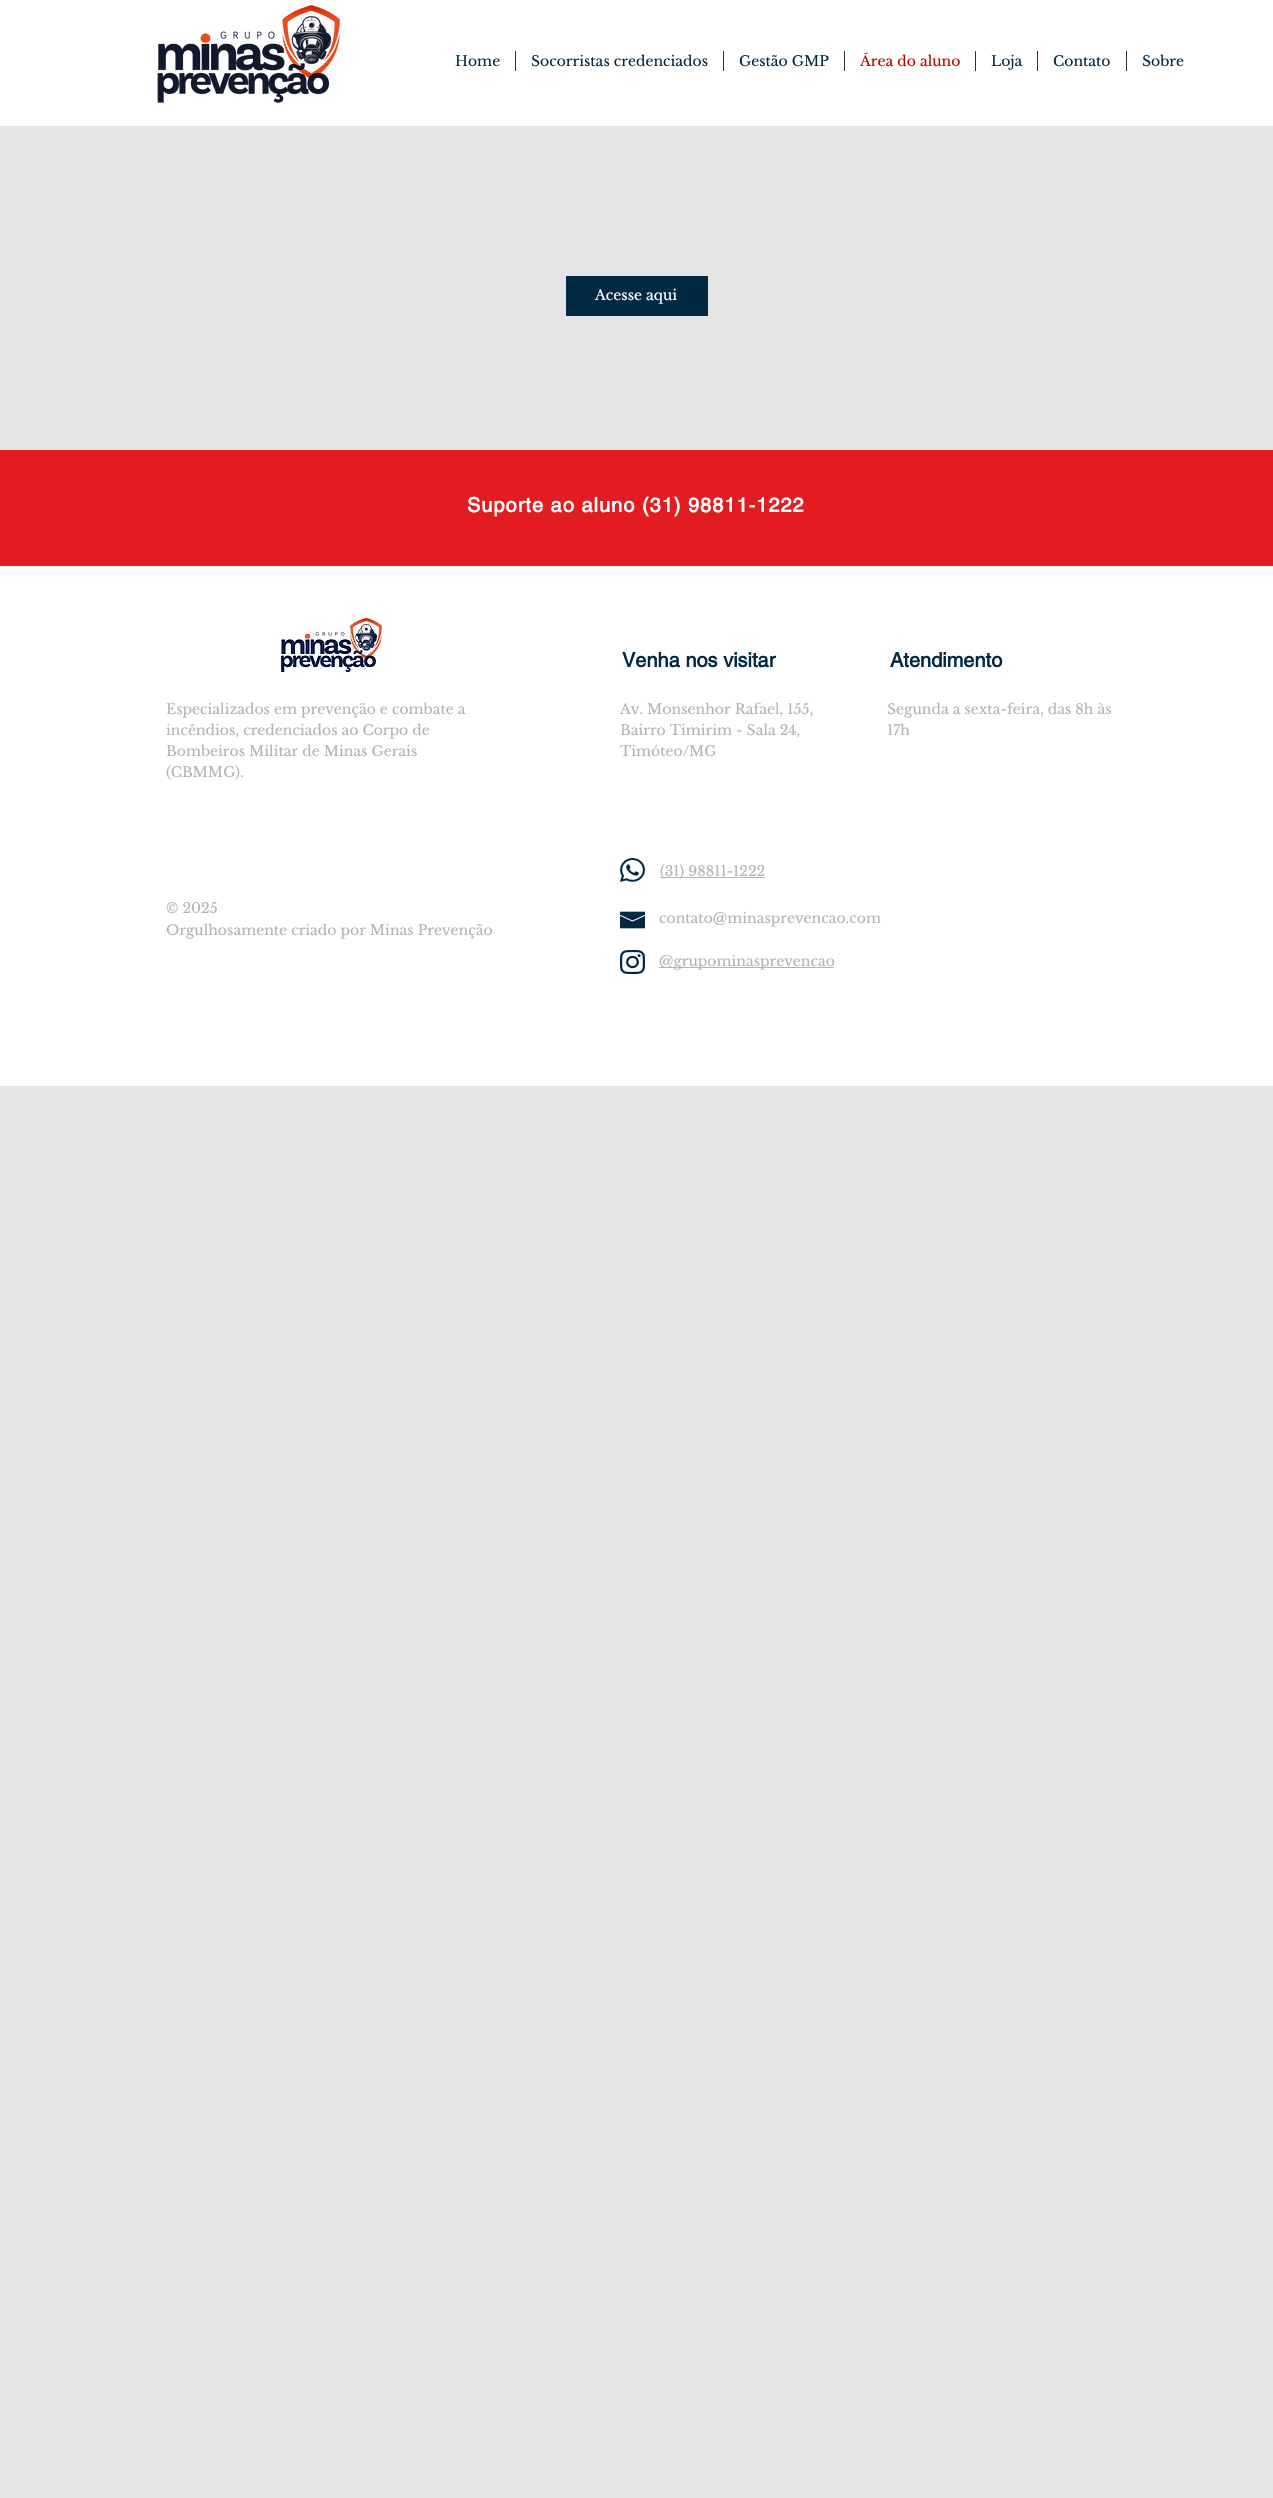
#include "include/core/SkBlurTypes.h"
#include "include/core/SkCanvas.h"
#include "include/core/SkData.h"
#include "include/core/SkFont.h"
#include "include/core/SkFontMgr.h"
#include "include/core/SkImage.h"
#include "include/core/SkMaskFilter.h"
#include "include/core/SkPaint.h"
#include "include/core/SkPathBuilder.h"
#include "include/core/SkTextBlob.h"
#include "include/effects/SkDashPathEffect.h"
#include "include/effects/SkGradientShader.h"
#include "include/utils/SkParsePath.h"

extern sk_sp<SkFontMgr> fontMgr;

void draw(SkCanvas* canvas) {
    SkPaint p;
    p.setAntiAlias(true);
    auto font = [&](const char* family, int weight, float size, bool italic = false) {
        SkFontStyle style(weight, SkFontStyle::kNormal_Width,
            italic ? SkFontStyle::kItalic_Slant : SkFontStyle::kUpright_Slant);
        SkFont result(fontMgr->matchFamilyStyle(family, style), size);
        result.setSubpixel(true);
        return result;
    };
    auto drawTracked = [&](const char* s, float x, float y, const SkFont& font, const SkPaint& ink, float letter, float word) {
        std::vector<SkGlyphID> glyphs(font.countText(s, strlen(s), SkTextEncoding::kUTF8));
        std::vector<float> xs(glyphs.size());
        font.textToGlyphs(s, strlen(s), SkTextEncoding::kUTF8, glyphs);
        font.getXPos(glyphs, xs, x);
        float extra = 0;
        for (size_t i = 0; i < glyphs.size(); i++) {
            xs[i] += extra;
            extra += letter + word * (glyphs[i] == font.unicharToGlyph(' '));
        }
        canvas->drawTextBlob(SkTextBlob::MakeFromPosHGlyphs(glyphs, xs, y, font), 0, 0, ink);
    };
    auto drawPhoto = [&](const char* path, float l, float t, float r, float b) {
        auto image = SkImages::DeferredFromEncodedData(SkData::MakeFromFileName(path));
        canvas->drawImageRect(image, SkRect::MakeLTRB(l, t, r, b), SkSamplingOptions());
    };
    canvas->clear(0xFFE5E5E5);
    p.setColor(0xFFFFFFFF);
    canvas->drawRect(SkRect::MakeLTRB(0, 0, 1273, 126), p);
    drawPhoto("media/1.png", 157, 5, 340, 103);
    auto font1 = font("Libre Baskerville", 400, 14);
    p.setColor(0xFF012942);
    canvas->drawString("Home", 455, 66, font1, p);
    p.setColor(0xFF2E2E2E);
    canvas->drawRect(SkRect::MakeLTRB(515, 51, 516, 71), p);
    p.setColor(0xFF012942);
    canvas->drawString("Socorristas credenciados", 531, 66, font1, p);
    p.setColor(0xFF2E2E2E);
    canvas->drawRect(SkRect::MakeLTRB(723, 51, 724, 71), p);
    p.setColor(0xFF012942);
    canvas->drawString("Gestão GMP", 739, 66, font1, p);
    p.setColor(0xFF2E2E2E);
    canvas->drawRect(SkRect::MakeLTRB(844, 51, 845, 71), p);
    p.setColor(0xFFC30000);
    canvas->drawString("Área do aluno", 860, 66, font1, p);
    p.setColor(0xFF2E2E2E);
    canvas->drawRect(SkRect::MakeLTRB(975, 51, 976, 71), p);
    p.setColor(0xFF012942);
    canvas->drawString("Loja", 991, 66, font1, p);
    p.setColor(0xFF2E2E2E);
    canvas->drawRect(SkRect::MakeLTRB(1037, 51, 1038, 71), p);
    p.setColor(0xFF012942);
    canvas->drawString("Contato", 1053, 66, font1, p);
    p.setColor(0xFF2E2E2E);
    canvas->drawRect(SkRect::MakeLTRB(1126, 51, 1127, 71), p);
    p.setColor(0xFF012942);
    canvas->drawString("Sobre", 1142, 66, font1, p);
    canvas->drawRect(SkRect::MakeLTRB(566, 276, 708, 316), p);
    p.setColor(0xFFFFFFFF);
    canvas->drawString("Acesse aqui", 595, 300, font1, p);
    p.setColor(0xFFE21C21);
    canvas->drawRect(SkRect::MakeLTRB(0, 450, 1273, 566), p);
    auto font2 = font("helvetica", 700, 20);
    p.setColor(0xFFFFFFFF);
    drawTracked("Suporte ao aluno (31) 98811-1222", 467, 512, font2, p, 1, 0);
    canvas->drawRect(SkRect::MakeLTRB(0, 566, 1273, 1086), p);
    drawPhoto("media/2.png", 281, 618, 382, 672);
    p.setColor(0xFF012942);
    canvas->drawString("Venha nos visitar", 622, 667, font2, p);
    canvas->drawString("Atendimento", 890, 667, font2, p);
    p.setColor(0xFFB3B3B3);
    {
        const struct { const char* s; float x, y; } items[] = {
            {"Especializados em prevenção e combate a", 166, 714},
            {"incêndios, credenciados ao Corpo de", 166, 735},
            {"Bombeiros Militar de Minas Gerais", 166, 756},
            {"(CBMMG).", 166, 777},
            {"Av. Monsenhor Rafael, 155,", 620, 714},
            {"Bairro Timirim - Sala 24,", 620, 735},
            {"Timóteo/MG", 620, 756},
            {"Segunda a sexta-feira, das 8h às", 887, 714},
            {"17h", 887, 735},
        };
        for (auto [s, x, y] : items) {
            canvas->drawString(s, x, y, font1, p);
        }
    }
    drawPhoto("media/3.png", 620, 858, 645, 882);
    canvas->drawRect(SkRect::MakeLTRB(660, 877, 765, 878), p);
    {
        const struct { const char* s; float x, y; } items[] = {
            {"(31) 98811-1222", 660, 876},
            {"© 2025", 166, 913},
            {"Orgulhosamente criado por Minas Prevenção", 166, 935},
        };
        for (auto [s, x, y] : items) {
            canvas->drawString(s, x, y, font1, p);
        }
    }
    drawPhoto("media/4.png", 620, 911, 645, 929);
    canvas->drawString("contato@minasprevencao.com", 659, 923, font1, p);
    drawPhoto("media/5.png", 620, 950, 645, 974);
    canvas->drawRect(SkRect::MakeLTRB(659, 967, 834, 968), p);
    canvas->drawString("@grupominasprevencao", 659, 966, font1, p);
}
